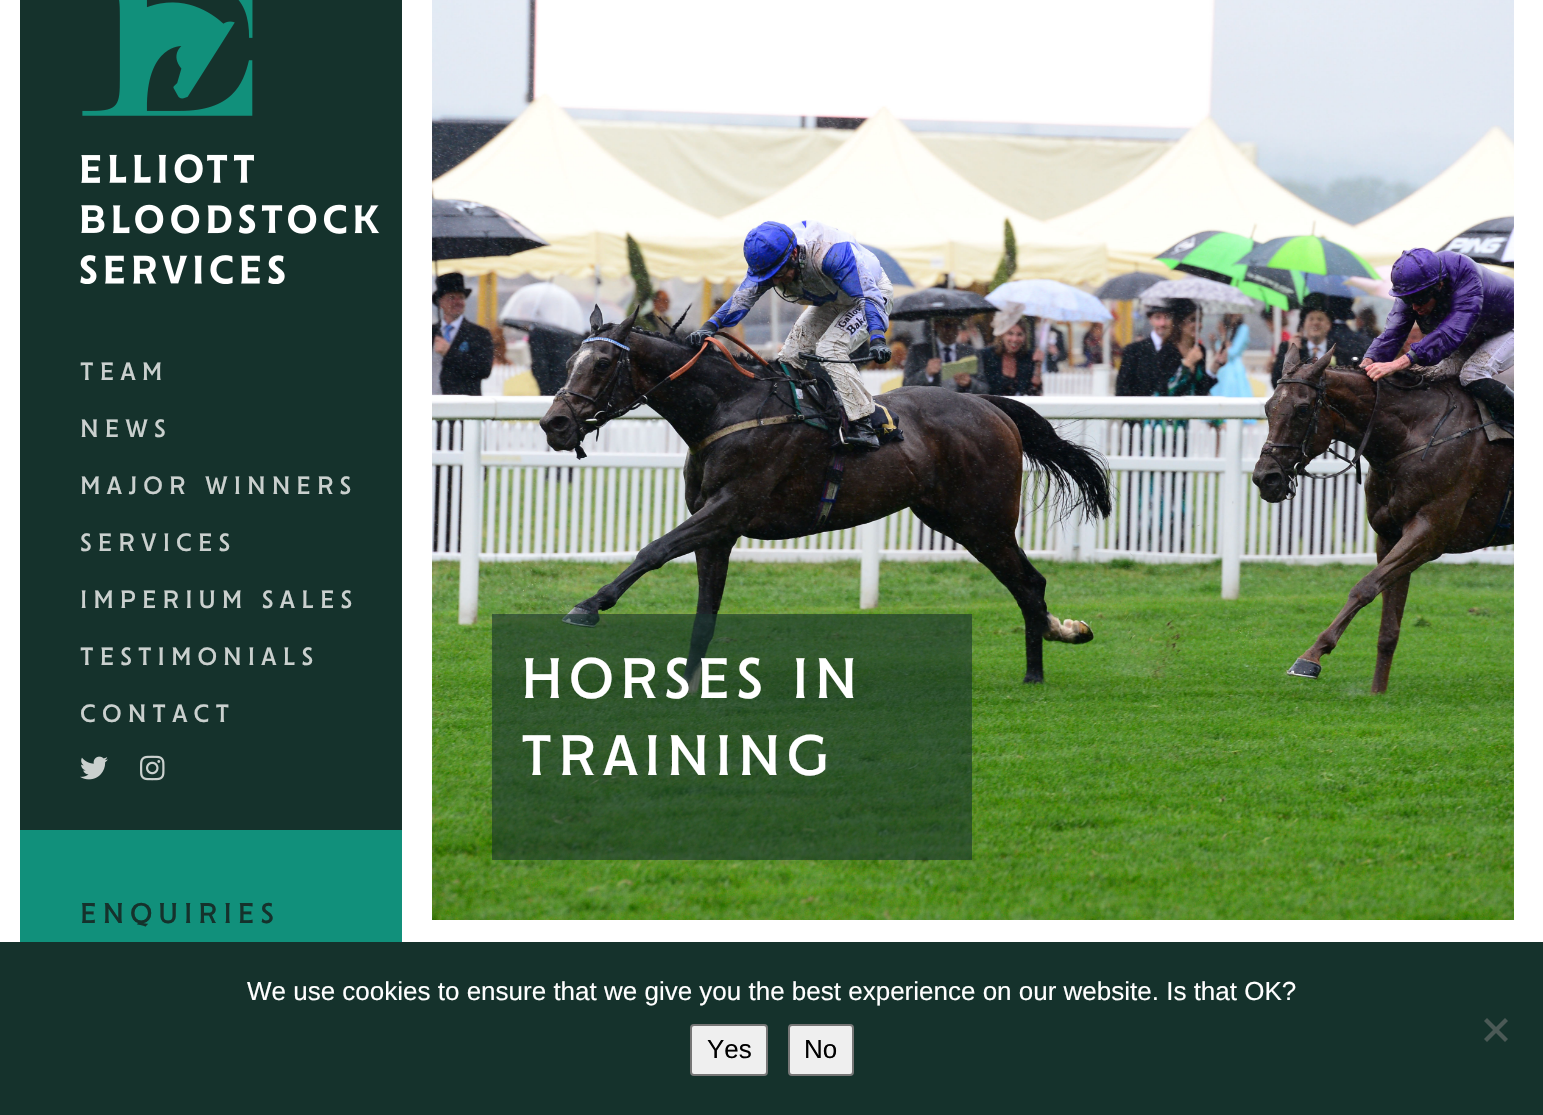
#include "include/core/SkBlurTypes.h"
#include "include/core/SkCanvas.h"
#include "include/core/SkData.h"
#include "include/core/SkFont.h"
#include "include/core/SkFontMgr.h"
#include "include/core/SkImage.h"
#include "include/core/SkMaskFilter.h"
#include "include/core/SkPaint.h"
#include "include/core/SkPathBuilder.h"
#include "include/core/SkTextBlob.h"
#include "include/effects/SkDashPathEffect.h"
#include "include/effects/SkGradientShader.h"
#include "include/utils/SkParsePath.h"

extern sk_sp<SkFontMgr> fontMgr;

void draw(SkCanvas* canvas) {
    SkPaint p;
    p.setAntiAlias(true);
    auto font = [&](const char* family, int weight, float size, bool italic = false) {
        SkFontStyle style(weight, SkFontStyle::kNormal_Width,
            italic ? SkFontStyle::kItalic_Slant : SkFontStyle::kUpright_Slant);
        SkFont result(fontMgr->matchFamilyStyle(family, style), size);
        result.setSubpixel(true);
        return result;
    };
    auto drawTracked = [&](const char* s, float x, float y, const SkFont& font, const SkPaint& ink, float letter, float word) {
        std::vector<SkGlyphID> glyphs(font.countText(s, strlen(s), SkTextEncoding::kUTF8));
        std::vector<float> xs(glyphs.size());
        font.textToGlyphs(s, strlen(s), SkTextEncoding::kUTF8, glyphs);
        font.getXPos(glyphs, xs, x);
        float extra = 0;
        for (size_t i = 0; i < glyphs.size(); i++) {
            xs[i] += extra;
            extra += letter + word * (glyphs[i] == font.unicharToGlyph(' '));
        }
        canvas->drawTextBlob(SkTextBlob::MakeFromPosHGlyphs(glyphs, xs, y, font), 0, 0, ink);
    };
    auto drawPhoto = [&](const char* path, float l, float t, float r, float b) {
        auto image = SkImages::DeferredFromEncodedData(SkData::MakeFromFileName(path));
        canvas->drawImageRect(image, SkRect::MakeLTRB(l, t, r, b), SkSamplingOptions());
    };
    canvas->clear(0xFF15322C);
    p.setColor(0xFFFFFFFF);
    canvas->drawRect(SkRect::MakeLTRB(0, 0, 20, 942), p);
    drawPhoto("media/1.png", 80, 0, 380, 284);
    auto font1 = font("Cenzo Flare", 400, 28);
    p.setColor(0xFFCAD0CE);
    {
        const struct { const char* s; float x, y; } items[] = {
            {"TEAM", 80, 380},
            {"NEWS", 80, 437},
            {"MAJOR WINNERS", 80, 494},
            {"SERVICES", 80, 551},
            {"IMPERIUM SALES", 80, 608},
            {"TESTIMONIALS", 80, 665},
            {"CONTACT", 80, 722},
        };
        for (auto [s, x, y] : items) {
            drawTracked(s, x, y, font1, p, 6, 0);
        }
    }
    drawPhoto("media/2.png", 80, 756, 108, 780);
    drawPhoto("media/3.png", 140, 755, 165, 781);
    p.setColor(0xFF11907B);
    canvas->drawRect(SkRect::MakeLTRB(20, 830, 402, 942), p);
    auto font2 = font("Cenzo Flare", 400, 32);
    p.setColor(0xFF15322C);
    drawTracked("ENQUIRIES", 80, 923, font2, p, 6, 0);
    p.setColor(0xFFFFFFFF);
    canvas->drawRect(SkRect::MakeLTRB(402, 0, 1543, 942), p);
    drawPhoto("media/4.png", 432, 0, 1514, 920);
    p.setColor(0x9915322C);
    canvas->drawRect(SkRect::MakeLTRB(492, 614, 972, 860), p);
    auto font3 = font("Cenzo Flare", 400, 64);
    p.setColor(0xFFFFFFFF);
    drawTracked("HORSES IN", 521, 698, font3, p, 6, 0);
    drawTracked("TRAINING", 521, 775, font3, p, 6, 0);
    auto font4 = font("Liberation Sans", 400, 26);
    canvas->drawString("We use cookies to ensure that we give you the best experience on our website. Is that OK?", 247, 1000, font4, p);
    p.setColor(0xFF4B5956);
    canvas->drawPath(SkPathBuilder().moveTo(1505, 1018).lineTo(1508, 1021).lineTo(1487, 1042).lineTo(1484, 1039).close().detach(), p);
    canvas->drawPath(SkPathBuilder().moveTo(1484, 1021).lineTo(1487, 1018).lineTo(1508, 1039).lineTo(1505, 1042).close().detach(), p);
    p.setColor(0xFFEFEFEF);
    canvas->drawRoundRect(SkRect::MakeLTRB(691, 1025, 767, 1075), 3, 3, p);
    p.setStyle(SkPaint::kStroke_Style);
    p.setStrokeWidth(2);
    p.setColor(0xFF767676);
    canvas->drawRoundRect(SkRect::MakeLTRB(691, 1025, 767, 1075), 3, 3, p);
    p.setStyle(SkPaint::kFill_Style);
    p.setColor(0xFF000000);
    canvas->drawString("Yes", 707, 1058, font4, p);
    p.setColor(0xFFEFEFEF);
    canvas->drawRoundRect(SkRect::MakeLTRB(789, 1025, 853, 1075), 3, 3, p);
    p.setStyle(SkPaint::kStroke_Style);
    p.setColor(0xFF767676);
    canvas->drawRoundRect(SkRect::MakeLTRB(789, 1025, 853, 1075), 3, 3, p);
    p.setStyle(SkPaint::kFill_Style);
    p.setColor(0xFF000000);
    canvas->drawString("No", 804, 1058, font4, p);
}
